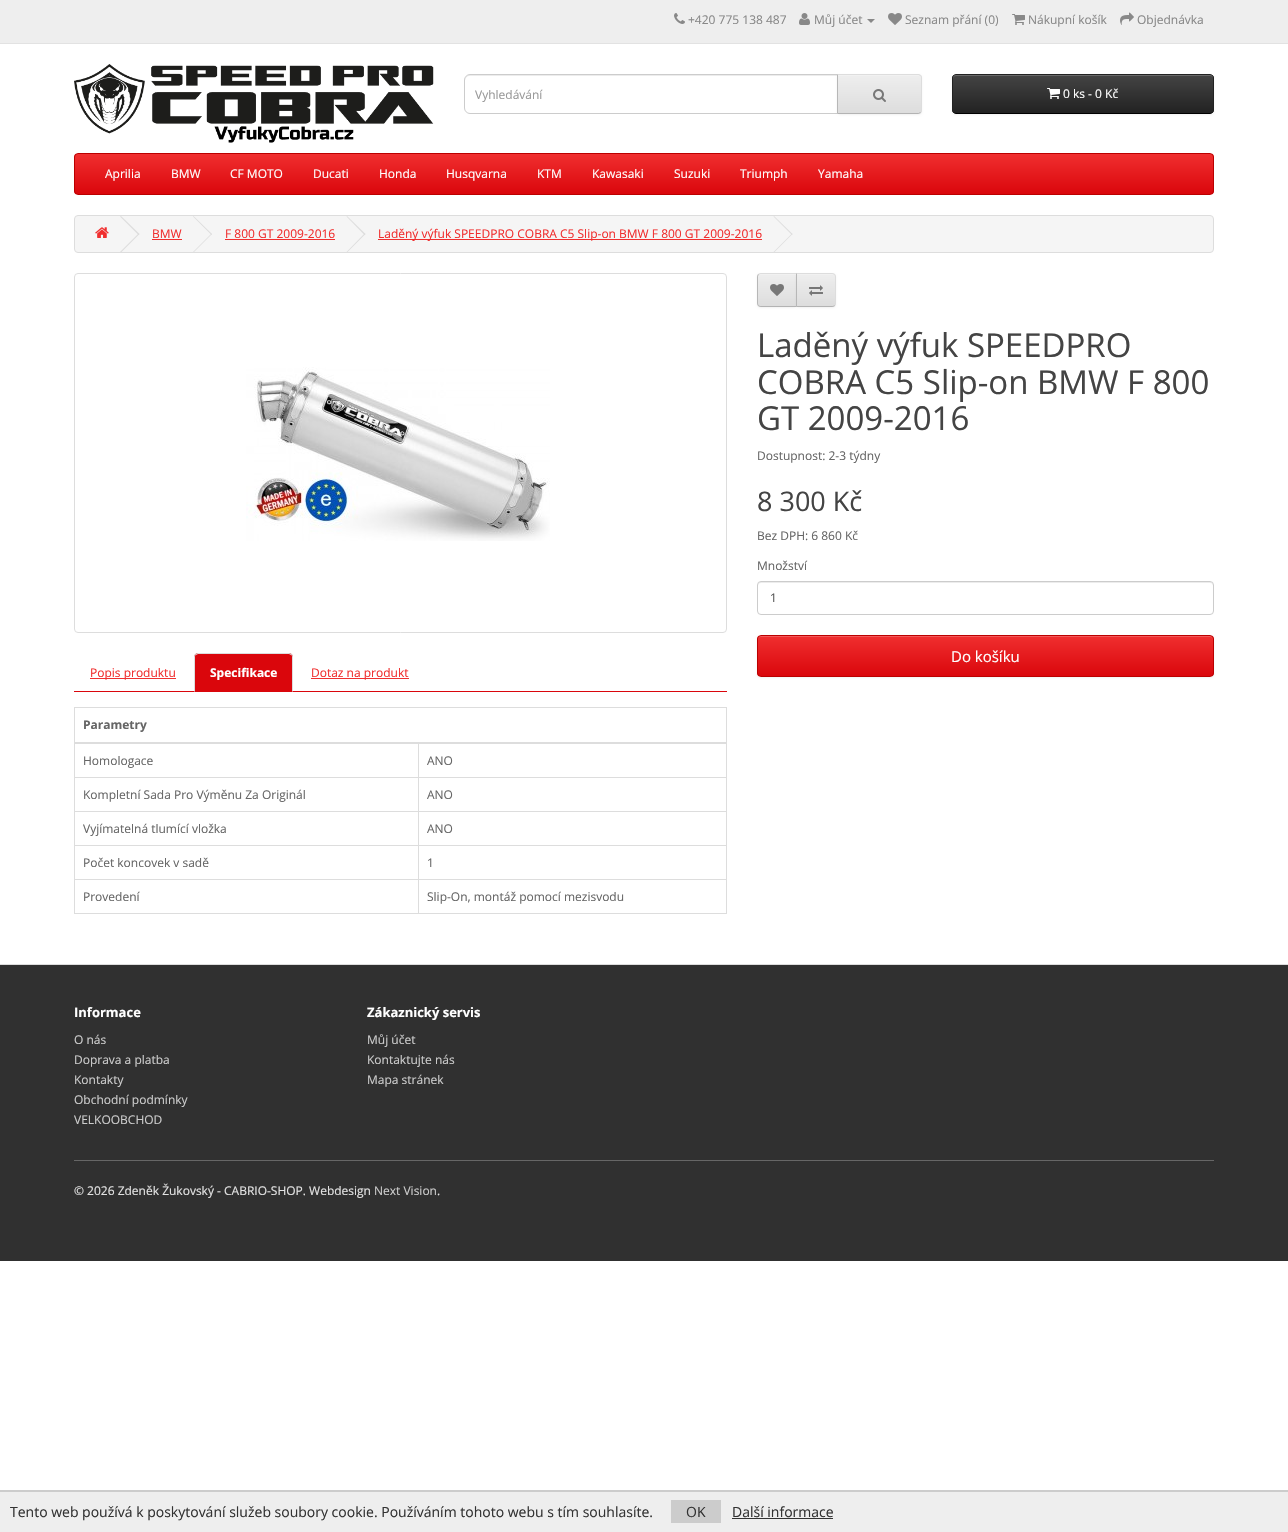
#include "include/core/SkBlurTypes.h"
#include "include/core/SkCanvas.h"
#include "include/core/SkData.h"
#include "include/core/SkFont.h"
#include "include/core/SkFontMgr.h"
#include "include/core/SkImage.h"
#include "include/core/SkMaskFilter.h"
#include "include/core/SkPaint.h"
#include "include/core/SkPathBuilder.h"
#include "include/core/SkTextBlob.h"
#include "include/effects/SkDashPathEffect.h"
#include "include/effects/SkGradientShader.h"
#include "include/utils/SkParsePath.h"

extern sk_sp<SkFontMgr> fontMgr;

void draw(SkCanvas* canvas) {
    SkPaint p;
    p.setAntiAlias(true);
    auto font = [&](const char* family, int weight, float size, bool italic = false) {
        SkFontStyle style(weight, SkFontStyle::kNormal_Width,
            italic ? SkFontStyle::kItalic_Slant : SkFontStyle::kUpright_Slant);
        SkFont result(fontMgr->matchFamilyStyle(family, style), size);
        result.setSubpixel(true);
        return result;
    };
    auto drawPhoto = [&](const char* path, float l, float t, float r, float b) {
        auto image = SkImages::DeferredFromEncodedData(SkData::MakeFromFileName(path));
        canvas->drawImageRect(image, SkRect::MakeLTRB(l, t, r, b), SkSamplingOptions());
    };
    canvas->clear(0xFFFFFFFF);
    p.setColor(0xFFEEEEEE);
    canvas->drawRect(SkRect::MakeLTRB(0, 0, 1288, 43), p);
    p.setColor(0xFFE2E2E2);
    canvas->drawRect(SkRect::MakeLTRB(0, 43, 1288, 44), p);
    drawPhoto("media/1.png", 674, 13, 685, 24);
    auto font1 = font("Open Sans", 400, 12);
    p.setColor(0xFF888888);
    canvas->drawString("+420 775 138 487", 688, 24, font1, p);
    drawPhoto("media/2.png", 799, 13, 810, 25);
    canvas->drawString("Můj účet", 814, 24, font1, p);
    canvas->drawPath(SkPathBuilder().moveTo(867, 19).lineTo(875, 19).lineTo(871, 23).close().detach(), p);
    drawPhoto("media/3.png", 888, 13, 902, 25);
    canvas->drawString("Seznam přání (0)", 905, 24, font1, p);
    drawPhoto("media/4.png", 1012, 14, 1025, 25);
    canvas->drawString("Nákupní košík", 1028, 24, font1, p);
    drawPhoto("media/5.png", 1120, 12, 1134, 25);
    canvas->drawString("Objednávka", 1137, 24, font1, p);
    drawPhoto("media/6.png", 74, 64, 434, 143);
    p.setColor(0xFFECECEC);
    canvas->drawPath(SkPathBuilder().moveTo(470, 76).lineTo(837, 76).lineTo(837, 75).lineTo(470, 75).cubicTo(467, 75, 465, 77, 465, 80).lineTo(465, 81).cubicTo(465, 78, 467, 76, 470, 76).close().detach(), p);
    p.setStyle(SkPaint::kStroke_Style);
    p.setStrokeWidth(1);
    p.setColor(0xFFCCCCCC);
    canvas->drawPath(SkPathBuilder().moveTo(470, 74.5f).lineTo(837.5f, 74.5f).lineTo(837.5f, 113.5f).lineTo(470, 113.5f).cubicTo(467, 113.5f, 464.5f, 111, 464.5f, 108).lineTo(464.5f, 80).cubicTo(464.5f, 77, 467, 74.5f, 470, 74.5f).close().detach(), p);
    p.setStyle(SkPaint::kFill_Style);
    p.setColor(0xFF999999);
    canvas->drawString("Vyhledávání", 475, 99, font1, p);
    p.setColor(0x0D000000);
    p.setMaskFilter(SkMaskFilter::MakeBlur(kNormal_SkBlurStyle, 1));
    canvas->drawRoundRect(SkRect::MakeLTRB(837, 75, 922, 115), 4, 4, p);
    p.setMaskFilter(nullptr);
    p.setColor(0xFFE7E7E7);
    canvas->drawPath(SkPathBuilder().moveTo(837, 74).lineTo(918, 74).cubicTo(920, 74, 922, 76, 922, 78).lineTo(922, 110).cubicTo(922, 112, 920, 114, 918, 114).lineTo(837, 114).close().detach(), p);
    canvas->save();
    canvas->clipPath(SkPathBuilder().moveTo(837, 74).lineTo(918, 74).cubicTo(920, 74, 922, 76, 922, 78).lineTo(922, 110).cubicTo(922, 112, 920, 114, 918, 114).lineTo(837, 114).close().detach(), true);
    {
        const SkColor colors[] = {0xFFEEEEEE, 0xFFDDDDDD};
        const float stops[] = {0, 1};
        const SkPoint ends[] = {{880, 75}, {880, 113}};
        p.setShader(SkGradientShader::MakeLinear(ends, colors, stops, 2, SkTileMode::kClamp));
        p.setAlpha(255);
    }
    canvas->drawRect(SkRect::MakeLTRB(838, 75, 922, 113), p);
    canvas->restore();
    p.setShader(nullptr);
    p.setColor(0xFFF1F1F1);
    canvas->drawPath(SkPathBuilder().moveTo(838, 76).lineTo(918, 76).cubicTo(920, 76, 921, 77, 921, 79).lineTo(921, 78).cubicTo(921, 76, 920, 75, 918, 75).lineTo(838, 75).close().detach(), p);
    p.setColor(0xFFDDDDDD);
    canvas->drawPath(SkPathBuilder().moveTo(837, 74).lineTo(838, 75).lineTo(919, 75).lineTo(920, 76).lineTo(921, 75).lineTo(918, 74).close().detach(), p);
    canvas->drawPath(SkPathBuilder().moveTo(922, 110).lineTo(922, 78).cubicTo(922, 77, 921.5f, 76, 921, 75).lineTo(920, 76).cubicTo(921, 76, 921, 77, 921, 78).lineTo(921, 110).cubicTo(921, 111, 921, 112, 920, 112).lineTo(921, 113).cubicTo(921.5f, 112, 922, 111, 922, 110).close().detach(), p);
    p.setColor(0xFFB3B3B3);
    canvas->drawPath(SkPathBuilder().moveTo(918, 114).lineTo(921, 113).lineTo(920, 112).lineTo(919, 113).lineTo(838, 113).lineTo(837, 114).close().detach(), p);
    p.setColor(0xFFB7B7B7);
    canvas->drawPath(SkPathBuilder().moveTo(837, 74).lineTo(837, 114).lineTo(838, 113).lineTo(838, 75).close().detach(), p);
    drawPhoto("media/7.png", 873, 89, 886, 102);
    p.setColor(0x0D000000);
    p.setMaskFilter(SkMaskFilter::MakeBlur(kNormal_SkBlurStyle, 1));
    canvas->drawRoundRect(SkRect::MakeLTRB(952, 75, 1214, 115), 4, 4, p);
    p.setMaskFilter(nullptr);
    canvas->save();
    canvas->clipPath(SkPathBuilder().moveTo(956, 74).lineTo(1210, 74).cubicTo(1212, 74, 1214, 76, 1214, 78).lineTo(1214, 110).cubicTo(1214, 112, 1212, 114, 1210, 114).lineTo(956, 114).cubicTo(954, 114, 952, 112, 952, 110).lineTo(952, 78).cubicTo(952, 76, 954, 74, 956, 74).close().detach(), true);
    {
        const SkColor colors[] = {0xFF444444, 0xFF222222};
        const float stops[] = {0, 1};
        const SkPoint ends[] = {{1083, 75}, {1083, 113}};
        p.setShader(SkGradientShader::MakeLinear(ends, colors, stops, 2, SkTileMode::kClamp));
        p.setAlpha(255);
    }
    canvas->drawRect(SkRect::MakeLTRB(952, 75, 1214, 113), p);
    canvas->restore();
    p.setShader(nullptr);
    p.setColor(0xFF696969);
    canvas->drawPath(SkPathBuilder().moveTo(956, 76).lineTo(1211, 76).lineTo(1213, 77).lineTo(1213, 79).lineTo(1213, 78).cubicTo(1213, 76, 1212, 75, 1210, 75).lineTo(956, 75).cubicTo(954, 75, 953, 76, 953, 78).lineTo(953, 79).cubicTo(953, 77, 954, 76, 956, 76).close().detach(), p);
    p.setStyle(SkPaint::kStroke_Style);
    p.setColor(0xFF000000);
    canvas->drawPath(SkPathBuilder().moveTo(1212.5f, 112.5f).cubicTo(1212, 113, 1211, 113.5f, 1210, 113.5f).lineTo(956, 113.5f).cubicTo(955, 113.5f, 954, 113, 953.5f, 112.5f).detach(), p);
    p.setColor(0xFF222222);
    canvas->drawPath(SkPathBuilder().moveTo(953.5f, 112.5f).cubicTo(953, 112, 952.5f, 111, 952.5f, 110).lineTo(952.5f, 78).cubicTo(952.5f, 77, 953, 76, 953.5f, 75.5f).cubicTo(954, 75, 955, 74.5f, 956, 74.5f).lineTo(1210, 74.5f).cubicTo(1211, 74.5f, 1212, 75, 1212.5f, 75.5f).cubicTo(1213, 76, 1213.5f, 77, 1213.5f, 78).lineTo(1213.5f, 110).cubicTo(1213.5f, 111, 1213, 112, 1212.5f, 112.5f).detach(), p);
    drawPhoto("media/8.png", 1047, 88, 1060, 99);
    p.setStyle(SkPaint::kFill_Style);
    p.setColor(0xFFFFFFFF);
    canvas->drawString("0 ks - 0 Kč", 1063, 98, font1, p);
    canvas->save();
    canvas->clipPath(SkPathBuilder().moveTo(78, 153).lineTo(1210, 153).cubicTo(1212, 153, 1214, 155, 1214, 157).lineTo(1214, 191).cubicTo(1214, 193, 1212, 195, 1210, 195).lineTo(78, 195).cubicTo(76, 195, 74, 193, 74, 191).lineTo(74, 157).cubicTo(74, 155, 76, 153, 78, 153).close().detach(), true);
    {
        const SkColor colors[] = {0xFFF02F2F, 0xFFDA060C};
        const float stops[] = {0, 1};
        const SkPoint ends[] = {{644, 154}, {644, 194}};
        p.setShader(SkGradientShader::MakeLinear(ends, colors, stops, 2, SkTileMode::kClamp));
        p.setAlpha(255);
    }
    canvas->drawRect(SkRect::MakeLTRB(74, 154, 1214, 194), p);
    canvas->restore();
    p.setStyle(SkPaint::kStroke_Style);
    p.setShader(nullptr);
    p.setColor(0xFFBB0000);
    canvas->drawRoundRect(SkRect::MakeLTRB(74.5f, 153.5f, 1213.5f, 194.5f), 3.5f, 3.5f, p);
    p.setStyle(SkPaint::kFill_Style);
    p.setColor(0xFFFFFFFF);
    {
        const struct { const char* s; float x, y; } items[] = {
            {"Aprilia", 105, 178},
            {"BMW", 171, 178},
            {"CF MOTO", 230, 178},
            {"Ducati", 313, 178},
            {"Honda", 379, 178},
            {"Husqvarna", 446, 178},
            {"KTM", 537, 178},
            {"Kawasaki", 592, 178},
            {"Suzuki", 674, 178},
            {"Triumph", 740, 178},
            {"Yamaha", 818, 178},
        };
        for (auto [s, x, y] : items) {
            canvas->drawString(s, x, y, font1, p);
        }
    }
    p.setColor(0xFFF5F5F5);
    canvas->drawRoundRect(SkRect::MakeLTRB(74.5f, 215.5f, 1213.5f, 252.5f), 3.5f, 3.5f, p);
    p.setStyle(SkPaint::kStroke_Style);
    p.setColor(0xFFDDDDDD);
    canvas->drawRoundRect(SkRect::MakeLTRB(74.5f, 215.5f, 1213.5f, 252.5f), 3.5f, 3.5f, p);
    drawPhoto("media/9.png", 95, 227, 109, 238);
    p.setStyle(SkPaint::kFill_Style);
    canvas->drawPath(SkPathBuilder().moveTo(120, 216.5f).lineTo(121, 216).lineTo(139.5f, 234).lineTo(138.5f, 235).close().detach(), p);
    canvas->drawPath(SkPathBuilder().moveTo(120, 252).lineTo(138.5f, 233.5f).lineTo(139.5f, 234).lineTo(121, 252.5f).close().detach(), p);
    p.setColor(0xFFF02F2F);
    canvas->drawString("BMW", 152, 238, font1, p);
    canvas->drawRect(SkRect::MakeLTRB(152, 239, 182, 240), p);
    p.setColor(0xFFDDDDDD);
    canvas->drawPath(SkPathBuilder().moveTo(193, 216.5f).lineTo(193.5f, 216).lineTo(212, 234).lineTo(211.5f, 235).close().detach(), p);
    canvas->drawPath(SkPathBuilder().moveTo(193, 252).lineTo(211.5f, 233.5f).lineTo(212, 234).lineTo(193.5f, 252.5f).close().detach(), p);
    p.setColor(0xFFF02F2F);
    canvas->drawString("F 800 GT 2009-2016", 225, 238, font1, p);
    canvas->drawRect(SkRect::MakeLTRB(225, 239, 335, 240), p);
    p.setColor(0xFFDDDDDD);
    canvas->drawPath(SkPathBuilder().moveTo(346.5f, 216.5f).lineTo(347, 216).lineTo(365.5f, 234).lineTo(364.5f, 235).close().detach(), p);
    canvas->drawPath(SkPathBuilder().moveTo(346.5f, 252).lineTo(364.5f, 233.5f).lineTo(365.5f, 234).lineTo(347, 252.5f).close().detach(), p);
    p.setColor(0xFFF02F2F);
    canvas->drawRect(SkRect::MakeLTRB(378, 239, 762, 240), p);
    canvas->drawString("Laděný výfuk SPEEDPRO COBRA C5 Slip-on BMW F 800 GT 2009-2016", 378, 238, font1, p);
    p.setColor(0xFFDDDDDD);
    canvas->drawPath(SkPathBuilder().moveTo(773.5f, 216.5f).lineTo(774, 216).lineTo(792.5f, 234).lineTo(792, 235).close().detach(), p);
    canvas->drawPath(SkPathBuilder().moveTo(773.5f, 252).lineTo(792, 233.5f).lineTo(792.5f, 234).lineTo(774, 252.5f).close().detach(), p);
    p.setColor(0x0D000000);
    p.setMaskFilter(SkMaskFilter::MakeBlur(kNormal_SkBlurStyle, 1));
    canvas->drawRoundRect(SkRect::MakeLTRB(757, 274, 797, 308), 4, 4, p);
    p.setMaskFilter(nullptr);
    canvas->save();
    canvas->clipPath(SkPathBuilder().moveTo(761, 273).lineTo(797, 273).lineTo(797, 307).lineTo(761, 307).cubicTo(759, 307, 757, 305, 757, 303).lineTo(757, 277).cubicTo(757, 275, 759, 273, 761, 273).close().detach(), true);
    {
        const SkColor colors[] = {0xFFEEEEEE, 0xFFDDDDDD};
        const float stops[] = {0, 1};
        const SkPoint ends[] = {{777, 274}, {777, 306}};
        p.setShader(SkGradientShader::MakeLinear(ends, colors, stops, 2, SkTileMode::kClamp));
        p.setAlpha(255);
    }
    canvas->drawRect(SkRect::MakeLTRB(757, 274, 796, 306), p);
    canvas->restore();
    p.setShader(nullptr);
    p.setColor(0xFFF1F1F1);
    canvas->drawPath(SkPathBuilder().moveTo(761, 275).lineTo(796, 275).lineTo(796, 274).lineTo(761, 274).cubicTo(759.5f, 274, 758, 275.5f, 758, 277).lineTo(758, 278).cubicTo(758, 276, 759, 275, 761, 275).close().detach(), p);
    p.setColor(0xFFDDDDDD);
    canvas->drawPath(SkPathBuilder().moveTo(761, 273).cubicTo(760, 273, 759, 273.5f, 758, 274).lineTo(759, 275).cubicTo(759, 274, 760, 274, 761, 274).lineTo(796, 274).lineTo(797, 273).close().detach(), p);
    p.setColor(0xFFB3B3B3);
    canvas->drawPath(SkPathBuilder().moveTo(797, 307).lineTo(796, 306).lineTo(761, 306).cubicTo(760, 306, 759, 306, 759, 305).lineTo(758, 306).cubicTo(759, 306.5f, 760, 307, 761, 307).close().detach(), p);
    p.setColor(0xFFB7B7B7);
    canvas->drawPath(SkPathBuilder().moveTo(757, 277).lineTo(757, 303).cubicTo(757, 304, 757.5f, 305, 758, 306).lineTo(759, 305).cubicTo(758, 305, 758, 304, 758, 303).lineTo(758, 277).cubicTo(758, 276, 758, 275, 759, 275).lineTo(758, 274).cubicTo(757.5f, 275, 757, 276, 757, 277).close().detach(), p);
    drawPhoto("media/10.png", 770, 284, 784, 296);
    p.setColor(0x0D000000);
    p.setMaskFilter(SkMaskFilter::MakeBlur(kNormal_SkBlurStyle, 1));
    canvas->drawRoundRect(SkRect::MakeLTRB(796, 274, 836, 308), 4, 4, p);
    p.setMaskFilter(nullptr);
    canvas->save();
    canvas->clipPath(SkPathBuilder().moveTo(796, 273).lineTo(832, 273).cubicTo(834, 273, 836, 275, 836, 277).lineTo(836, 303).cubicTo(836, 305, 834, 307, 832, 307).lineTo(796, 307).close().detach(), true);
    {
        const SkColor colors[] = {0xFFEEEEEE, 0xFFDDDDDD};
        const float stops[] = {0, 1};
        const SkPoint ends[] = {{816, 274}, {816, 306}};
        p.setShader(SkGradientShader::MakeLinear(ends, colors, stops, 2, SkTileMode::kClamp));
        p.setAlpha(255);
    }
    canvas->drawRect(SkRect::MakeLTRB(797, 274, 836, 306), p);
    canvas->restore();
    p.setShader(nullptr);
    p.setColor(0xFFF1F1F1);
    canvas->drawPath(SkPathBuilder().moveTo(797, 275).lineTo(832, 275).cubicTo(834, 275, 835, 276, 835, 278).lineTo(835, 277).cubicTo(835, 275.5f, 833.5f, 274, 832, 274).lineTo(797, 274).close().detach(), p);
    p.setColor(0xFFDDDDDD);
    canvas->drawPath(SkPathBuilder().moveTo(796, 273).lineTo(797, 274).lineTo(832, 274).cubicTo(833, 274, 834, 274, 834, 275).lineTo(835, 274).cubicTo(834, 273.5f, 833, 273, 832, 273).close().detach(), p);
    canvas->drawPath(SkPathBuilder().moveTo(836, 303).lineTo(836, 277).cubicTo(836, 276, 835.5f, 275, 835, 274).lineTo(834, 275).cubicTo(835, 275, 835, 276, 835, 277).lineTo(835, 303).cubicTo(835, 304, 835, 305, 834, 305).lineTo(835, 306).cubicTo(835.5f, 305, 836, 304, 836, 303).close().detach(), p);
    p.setColor(0xFFB3B3B3);
    canvas->drawPath(SkPathBuilder().moveTo(832, 307).cubicTo(833, 307, 834, 306.5f, 835, 306).lineTo(834, 305).cubicTo(834, 306, 833, 306, 832, 306).lineTo(797, 306).lineTo(796, 307).close().detach(), p);
    p.setColor(0xFFB7B7B7);
    canvas->drawPath(SkPathBuilder().moveTo(796, 273).lineTo(796, 307).lineTo(797, 306).lineTo(797, 274).close().detach(), p);
    drawPhoto("media/11.png", 809, 285, 823, 296);
    auto font2 = font("Open Sans", 400, 33);
    p.setColor(0xFF444444);
    {
        const struct { const char* s; float x, y; } items[] = {
            {"Laděný výfuk SPEEDPRO", 757, 357},
            {"COBRA C5 Slip-on BMW F 800", 757, 394},
            {"GT 2009-2016", 757, 430},
        };
        for (auto [s, x, y] : items) {
            canvas->drawString(s, x, y, font2, p);
        }
    }
    p.setColor(0xFF666666);
    canvas->drawString("Dostupnost: 2-3 týdny", 757, 460, font1, p);
    auto font3 = font("Open Sans", 400, 27);
    p.setColor(0xFF444444);
    canvas->drawString("8 300 Kč", 757, 511, font3, p);
    p.setColor(0xFF666666);
    canvas->drawString("Bez DPH: 6 860 Kč", 757, 540, font1, p);
    canvas->drawString("Množství", 757, 570, font1, p);
    p.setColor(0xFFECECEC);
    canvas->drawPath(SkPathBuilder().moveTo(761, 583).lineTo(1210, 583).cubicTo(1212, 583, 1213, 584, 1213, 586).lineTo(1213, 584).lineTo(1211, 582).lineTo(760, 582).cubicTo(758, 583, 758, 584, 758, 586).cubicTo(758, 584, 759, 583, 761, 583).close().detach(), p);
    p.setStyle(SkPaint::kStroke_Style);
    p.setColor(0xFFCCCCCC);
    canvas->drawRoundRect(SkRect::MakeLTRB(757.5f, 581.5f, 1213.5f, 614.5f), 3.5f, 3.5f, p);
    p.setStyle(SkPaint::kFill_Style);
    p.setColor(0xFF555555);
    canvas->drawString("1", 770, 602, font1, p);
    p.setColor(0x0D000000);
    p.setMaskFilter(SkMaskFilter::MakeBlur(kNormal_SkBlurStyle, 1));
    canvas->drawRoundRect(SkRect::MakeLTRB(757, 636, 1214, 678), 4, 4, p);
    p.setMaskFilter(nullptr);
    canvas->save();
    canvas->clipPath(SkPathBuilder().moveTo(761, 635).lineTo(1210, 635).cubicTo(1212, 635, 1214, 637, 1214, 639).lineTo(1214, 673).cubicTo(1214, 675, 1212, 677, 1210, 677).lineTo(761, 677).cubicTo(759, 677, 757, 675, 757, 673).lineTo(757, 639).cubicTo(757, 637, 759, 635, 761, 635).close().detach(), true);
    {
        const SkColor colors[] = {0xFFF02F2F, 0xFFDA060C};
        const float stops[] = {0, 1};
        const SkPoint ends[] = {{986, 636}, {986, 676}};
        p.setShader(SkGradientShader::MakeLinear(ends, colors, stops, 2, SkTileMode::kClamp));
        p.setAlpha(255);
    }
    canvas->drawRect(SkRect::MakeLTRB(757, 636, 1214, 676), p);
    canvas->restore();
    p.setShader(nullptr);
    p.setColor(0xFFF35859);
    canvas->drawPath(SkPathBuilder().moveTo(761, 637).lineTo(1210, 637).cubicTo(1212, 637, 1213, 638, 1213, 640).lineTo(1213, 638).lineTo(1211, 636).lineTo(760, 636).cubicTo(758, 637, 758, 638, 758, 640).cubicTo(758, 638, 759, 637, 761, 637).close().detach(), p);
    p.setStyle(SkPaint::kStroke_Style);
    p.setColor(0xFFBB0000);
    canvas->drawRoundRect(SkRect::MakeLTRB(757.5f, 635.5f, 1213.5f, 676.5f), 3.5f, 3.5f, p);
    auto font4 = font("Open Sans", 400, 15);
    p.setStyle(SkPaint::kFill_Style);
    p.setColor(0xFFFFFFFF);
    canvas->drawString("Do košíku", 951, 662, font4, p);
    p.setStyle(SkPaint::kStroke_Style);
    p.setColor(0xFFDDDDDD);
    canvas->drawRoundRect(SkRect::MakeLTRB(74.5f, 273.5f, 726.5f, 632.5f), 3.5f, 3.5f, p);
    drawPhoto("media/12.png", 246, 367, 550, 541);
    p.setStyle(SkPaint::kFill_Style);
    p.setColor(0xFFDA060C);
    canvas->drawRect(SkRect::MakeLTRB(74, 691, 727, 692), p);
    p.setColor(0xFFF02F2F);
    canvas->drawRect(SkRect::MakeLTRB(90, 678, 176, 679), p);
    canvas->drawString("Popis produktu", 90, 677, font1, p);
    p.setColor(0xFFDA060C);
    canvas->drawPath(SkPathBuilder().moveTo(198, 653).lineTo(289, 653).cubicTo(291, 653, 293, 655, 293, 657).lineTo(293, 692).lineTo(194, 692).lineTo(194, 657).cubicTo(194, 655, 196, 653, 198, 653).close().detach(), p);
    p.setColor(0xFFDDDDDD);
    canvas->drawPath(SkPathBuilder().moveTo(198, 653).lineTo(195, 654).lineTo(196, 655).lineTo(198, 654).lineTo(289, 654).lineTo(291, 655).lineTo(292, 654).lineTo(289, 653).close().detach(), p);
    canvas->drawPath(SkPathBuilder().moveTo(293, 692).lineTo(293, 657).cubicTo(293, 656, 292.5f, 655, 292, 654).lineTo(291, 655).cubicTo(292, 655, 292, 656, 292, 657).lineTo(292, 691).close().detach(), p);
    canvas->drawPath(SkPathBuilder().moveTo(194, 692).lineTo(195, 691).lineTo(195, 657).cubicTo(195, 656, 195, 655, 196, 655).lineTo(195, 654).cubicTo(194.5f, 655, 194, 656, 194, 657).close().detach(), p);
    auto font5 = font("Open Sans", 700, 12);
    p.setColor(0xFFFFFFFF);
    canvas->drawString("Specifikace", 210, 677, font5, p);
    p.setColor(0xFFF02F2F);
    canvas->drawRect(SkRect::MakeLTRB(311, 678, 409, 679), p);
    canvas->drawString("Dotaz na produkt", 311, 677, font1, p);
    {
        const struct { float l, t, r, b; SkColor color; } items[] = {
            {74, 707, 727, 708, 0xFFDDDDDD},
            {726, 707, 727, 914, 0xFFDDDDDD},
            {74, 913, 727, 914, 0xFFDDDDDD},
            {74, 707, 75, 914, 0xFFDDDDDD},
            {418, 777, 727, 778, 0xFFDDDDDD},
            {418, 811, 727, 812, 0xFFDDDDDD},
            {418, 845, 727, 846, 0xFFDDDDDD},
            {418, 879, 727, 880, 0xFFDDDDDD},
            {418, 879, 419, 914, 0xFFDDDDDD},
            {74, 879, 419, 880, 0xFFDDDDDD},
            {418, 845, 419, 880, 0xFFDDDDDD},
            {74, 845, 419, 846, 0xFFDDDDDD},
            {418, 811, 419, 846, 0xFFDDDDDD},
            {74, 811, 419, 812, 0xFFDDDDDD},
            {418, 777, 419, 812, 0xFFDDDDDD},
            {74, 777, 419, 778, 0xFFDDDDDD},
            {418, 742, 419, 778, 0xFFDDDDDD},
            {74, 742, 727, 744, 0xFFDDDDDD},
        };
        for (auto [l, t, r, b, color] : items) {
            p.setColor(color);
            canvas->drawRect(SkRect::MakeLTRB(l, t, r, b), p);
        }
    }
    p.setColor(0xFF666666);
    canvas->drawString("Parametry", 83, 729, font5, p);
    {
        const struct { const char* s; float x, y; } items[] = {
            {"Homologace", 83, 765},
            {"ANO", 427, 765},
            {"Kompletní Sada Pro Výměnu Za Originál", 83, 799},
            {"ANO", 427, 799},
            {"Vyjímatelná tlumící vložka", 83, 833},
            {"ANO", 427, 833},
            {"Počet koncovek v sadě", 83, 867},
            {"1", 427, 867},
            {"Provedení", 83, 901},
            {"Slip-On, montáž pomocí mezisvodu", 427, 901},
        };
        for (auto [s, x, y] : items) {
            canvas->drawString(s, x, y, font1, p);
        }
    }
    p.setColor(0xFF303030);
    canvas->drawRect(SkRect::MakeLTRB(0, 965, 1288, 1261), p);
    p.setColor(0xFFDDDDDD);
    canvas->drawRect(SkRect::MakeLTRB(0, 964, 1288, 965), p);
    auto font6 = font("Open Sans", 700, 13);
    p.setColor(0xFFFFFFFF);
    canvas->drawString("Informace", 74, 1017, font6, p);
    p.setColor(0xFFCCCCCC);
    {
        const struct { const char* s; float x, y; } items[] = {
            {"O nás", 74, 1044},
            {"Doprava a platba", 74, 1064},
            {"Kontakty", 74, 1084},
            {"Obchodní podmínky", 74, 1104},
            {"VELKOOBCHOD", 74, 1124},
        };
        for (auto [s, x, y] : items) {
            canvas->drawString(s, x, y, font1, p);
        }
    }
    p.setColor(0xFFFFFFFF);
    canvas->drawString("Zákaznický servis", 367, 1017, font6, p);
    p.setColor(0xFFCCCCCC);
    {
        const struct { const char* s; float x, y; } items[] = {
            {"Můj účet", 367, 1044},
            {"Kontaktujte nás", 367, 1064},
            {"Mapa stránek", 367, 1084},
        };
        for (auto [s, x, y] : items) {
            canvas->drawString(s, x, y, font1, p);
        }
    }
    p.setColor(0xFF666666);
    canvas->drawRect(SkRect::MakeLTRB(74, 1160, 1214, 1161), p);
    p.setColor(0xFFE2E2E2);
    canvas->drawString("© 2026 Zdeněk Žukovský - CABRIO-SHOP. Webdesign", 74, 1195, font1, p);
    p.setColor(0xFFCCCCCC);
    canvas->drawString("Next Vision", 374, 1195, font1, p);
    p.setColor(0xFFE2E2E2);
    canvas->drawString(".", 437, 1195, font1, p);
    p.setColor(0xFFEEEEEE);
    canvas->drawRect(SkRect::MakeLTRB(0, 1492, 1288, 1532), p);
    p.setColor(0xFFCCCCCC);
    canvas->drawRect(SkRect::MakeLTRB(0, 1490, 1288, 1492), p);
    auto font7 = font("Open Sans", 400, 14);
    p.setColor(0xFF333333);
    canvas->drawString("Tento web používá k poskytování služeb soubory cookie. Používáním tohoto webu s tím souhlasíte.", 10, 1517, font7, p);
    p.setColor(0xFFCCCCCC);
    canvas->drawRect(SkRect::MakeLTRB(671, 1500, 721, 1523), p);
    p.setColor(0xFF333333);
    canvas->drawString("OK", 686, 1517, font7, p);
    canvas->drawString("Další informace", 732, 1517, font7, p);
    canvas->drawRect(SkRect::MakeLTRB(732, 1518, 833, 1519), p);
}
